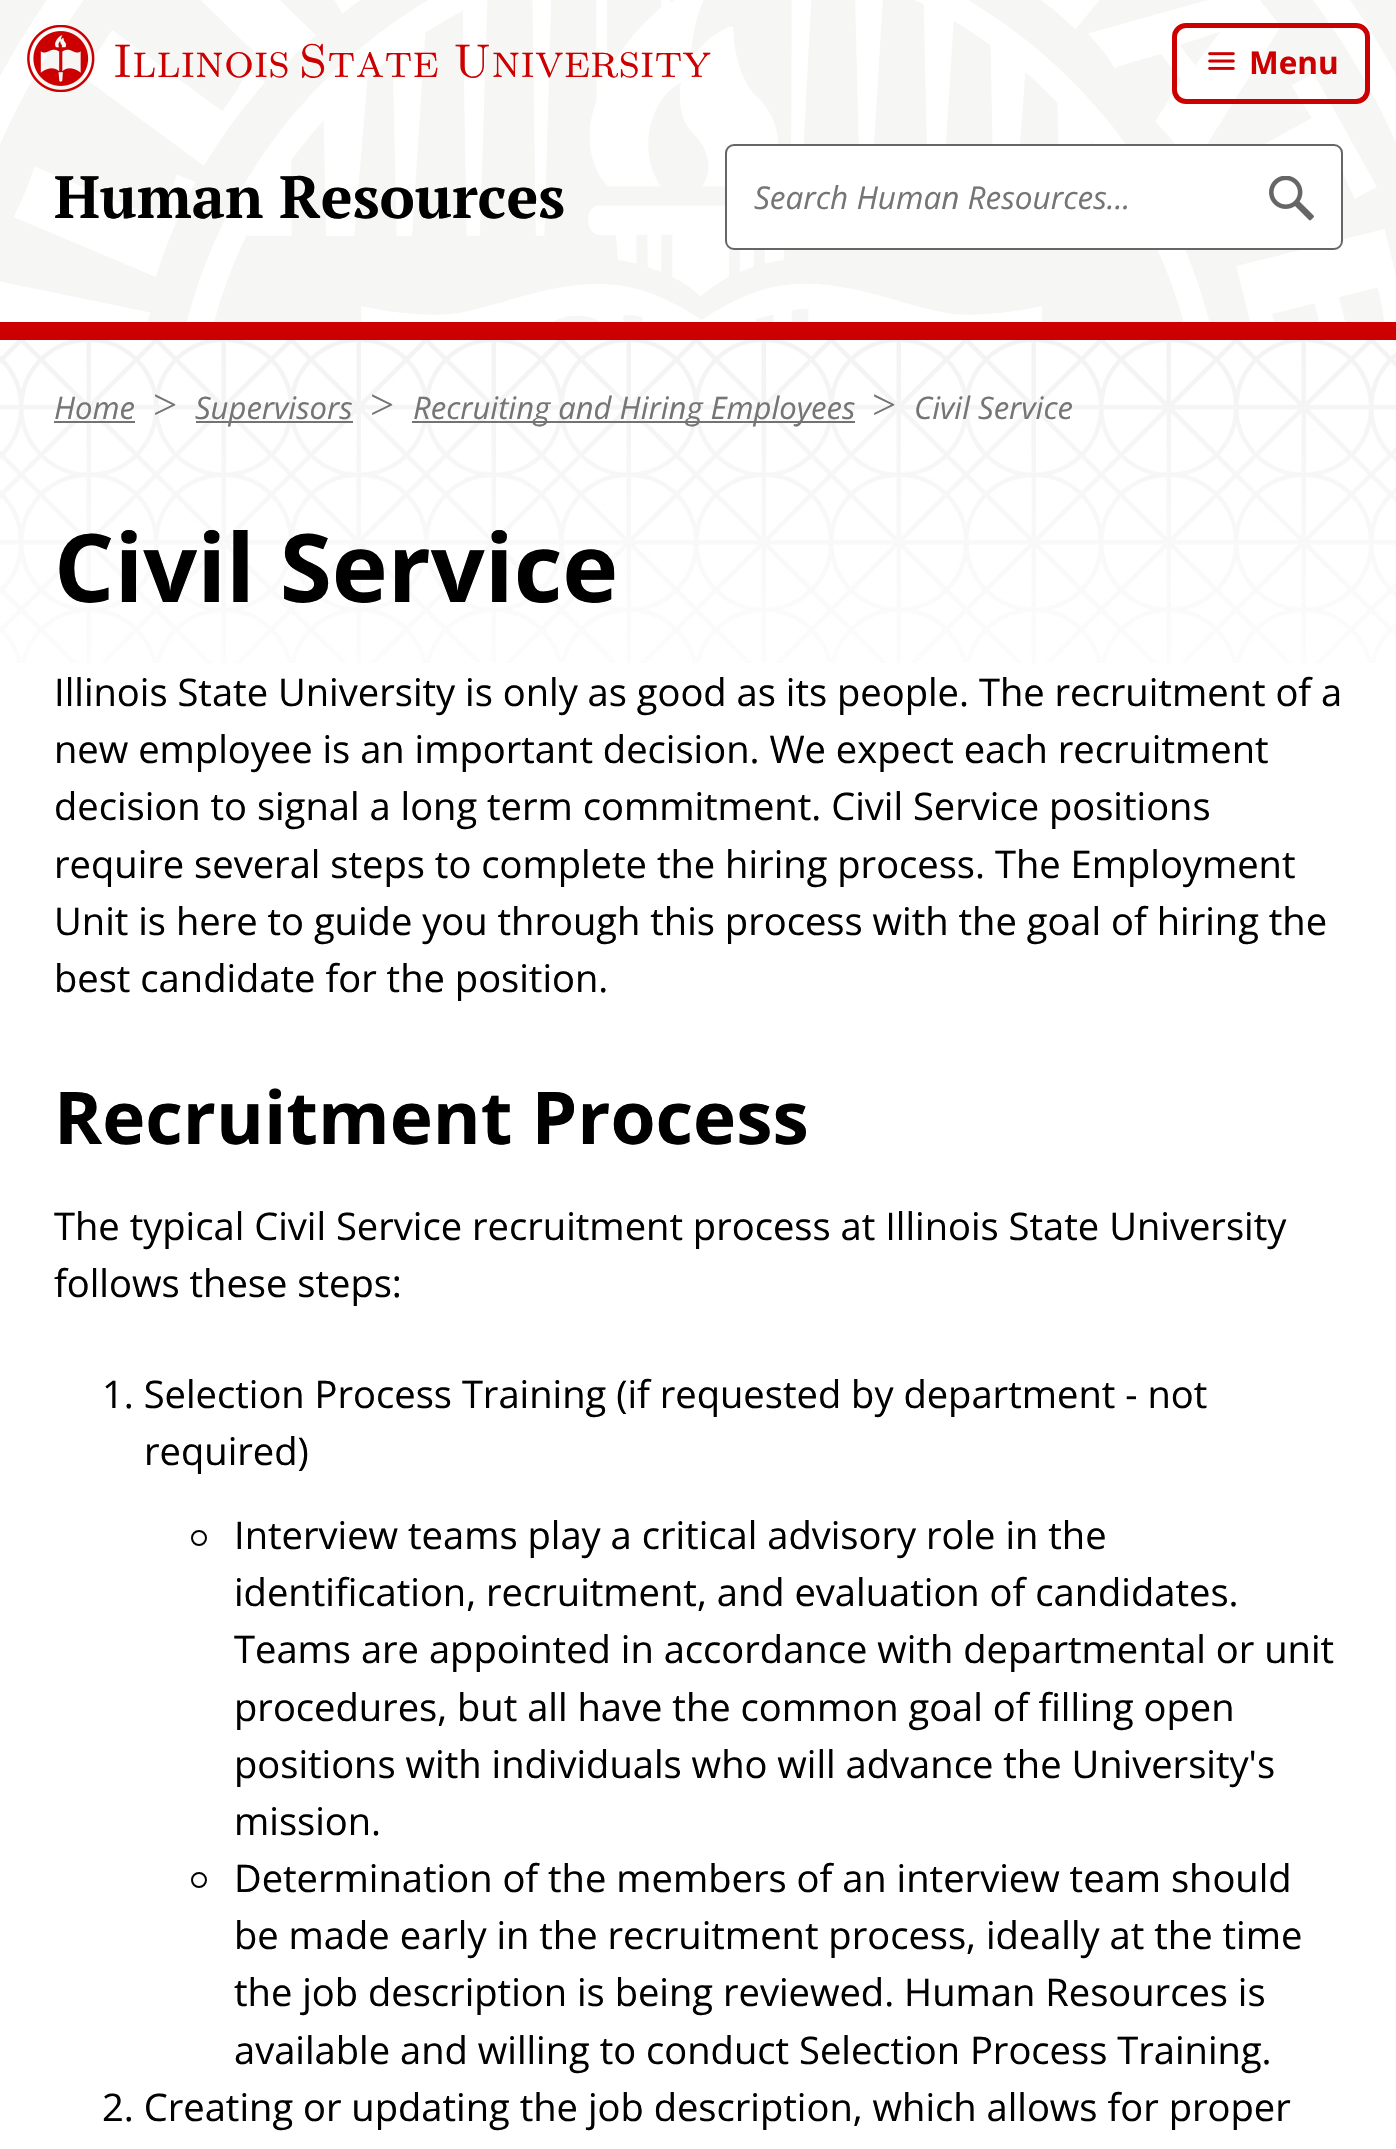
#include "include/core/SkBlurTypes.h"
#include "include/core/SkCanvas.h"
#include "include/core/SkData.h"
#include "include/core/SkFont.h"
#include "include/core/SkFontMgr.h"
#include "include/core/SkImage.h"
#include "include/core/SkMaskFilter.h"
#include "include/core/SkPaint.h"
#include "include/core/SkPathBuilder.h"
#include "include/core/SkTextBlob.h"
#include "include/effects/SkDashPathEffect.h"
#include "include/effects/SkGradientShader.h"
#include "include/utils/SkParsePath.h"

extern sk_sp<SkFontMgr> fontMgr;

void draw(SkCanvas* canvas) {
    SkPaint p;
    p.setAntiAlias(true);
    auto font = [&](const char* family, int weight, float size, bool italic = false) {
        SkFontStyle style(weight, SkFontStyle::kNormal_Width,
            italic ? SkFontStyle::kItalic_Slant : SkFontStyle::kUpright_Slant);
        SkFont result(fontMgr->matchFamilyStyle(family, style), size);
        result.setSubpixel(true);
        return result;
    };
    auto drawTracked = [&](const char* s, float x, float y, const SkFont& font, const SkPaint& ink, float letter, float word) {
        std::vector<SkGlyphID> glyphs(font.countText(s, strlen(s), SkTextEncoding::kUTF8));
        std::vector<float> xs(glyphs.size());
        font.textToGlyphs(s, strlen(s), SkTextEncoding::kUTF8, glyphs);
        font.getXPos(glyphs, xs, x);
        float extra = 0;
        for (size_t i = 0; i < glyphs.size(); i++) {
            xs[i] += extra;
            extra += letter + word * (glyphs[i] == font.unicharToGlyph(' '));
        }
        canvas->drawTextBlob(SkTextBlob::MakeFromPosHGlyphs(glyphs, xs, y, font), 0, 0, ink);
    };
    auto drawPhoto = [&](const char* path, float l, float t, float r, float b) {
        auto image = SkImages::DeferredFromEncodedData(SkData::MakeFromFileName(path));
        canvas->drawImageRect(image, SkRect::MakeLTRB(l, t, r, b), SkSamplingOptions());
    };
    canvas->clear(0xFFFFFFFF);
    drawPhoto("media/1.png", 0, 0, 1396, 322);
    drawPhoto("media/2.png", 27, 25, 95, 92);
    auto font1 = font("Latin Modern Roman Caps", 400, 47.25f);
    p.setColor(0xFFCC0000);
    drawTracked("Illinois State", 113, 77, font1, p, 0, -9);
    canvas->drawString("University", 453, 77, font1, p);
    p.setStyle(SkPaint::kStroke_Style);
    p.setStrokeWidth(5);
    canvas->drawRoundRect(SkRect::MakeLTRB(1174.5f, 25.5f, 1367.5f, 101.5f), 11.5f, 11.5f, p);
    drawPhoto("media/3.png", 1208, 52, 1235, 70);
    auto font2 = font("Open Sans", 700, 31.5f);
    p.setStyle(SkPaint::kFill_Style);
    canvas->drawString("Menu", 1249, 74, font2, p);
    auto font3 = font("PT Serif", 700, 59.5f);
    p.setColor(0xFF000000);
    canvas->drawString("Human Resources", 54, 218, font3, p);
    p.setColor(0xFFFFFFFF);
    canvas->drawRoundRect(SkRect::MakeLTRB(726, 145, 1342, 249), 8, 8, p);
    p.setStyle(SkPaint::kStroke_Style);
    p.setStrokeWidth(2);
    p.setColor(0xFF666666);
    canvas->drawRoundRect(SkRect::MakeLTRB(726, 145, 1342, 249), 8, 8, p);
    auto font4 = font("Open Sans", 400, 31.5f, true);
    p.setStyle(SkPaint::kFill_Style);
    p.setColor(0xFF757575);
    canvas->drawString("Search Human Resources...", 754, 209, font4, p);
    drawPhoto("media/4.png", 1269, 176, 1314, 221);
    p.setColor(0xFFCC0000);
    canvas->drawRect(SkRect::MakeLTRB(0, 322, 1396, 340), p);
    drawPhoto("media/5.png", 0, 340, 1396, 663);
    auto font5 = font("Open Sans", 400, 31, true);
    p.setColor(0xFF757575);
    canvas->drawString("Home", 54, 419, font5, p);
    p.setColor(0xFF737373);
    canvas->drawRect(SkRect::MakeLTRB(54, 421, 135, 423), p);
    auto font6 = font("Liberation Serif", 400, 43);
    p.setColor(0xFF757575);
    canvas->drawString(">", 153, 419, font6, p);
    p.setColor(0xFF737373);
    canvas->drawRect(SkRect::MakeLTRB(196, 421, 353, 423), p);
    p.setColor(0xFF757575);
    canvas->drawString("Supervisors", 195, 419, font5, p);
    canvas->drawString(">", 370, 419, font6, p);
    p.setColor(0xFF737373);
    canvas->drawRect(SkRect::MakeLTRB(412, 421, 855, 423), p);
    p.setColor(0xFF757575);
    canvas->drawString("Recruiting and Hiring Employees", 413, 419, font5, p);
    canvas->drawString(">", 872, 419, font6, p);
    canvas->drawString("Civil Service", 914, 419, font5, p);
    auto font7 = font("Open Sans", 700, 94.75f);
    p.setColor(0xFF000000);
    canvas->drawString("Civil Service", 54, 602, font7, p);
    auto font8 = font("Open Sans", 400, 38.1f);
    {
        const struct { const char* s; float x, y; } items[] = {
            {"Illinois State University is only as good as its people. The recruitment of a", 54, 706},
            {"new employee is an important decision. We expect each recruitment", 54, 763},
            {"decision to signal a long term commitment. Civil Service positions", 54, 820},
            {"require several steps to complete the hiring process. The Employment", 54, 878},
            {"Unit is here to guide you through this process with the goal of hiring the", 54, 935},
            {"best candidate for the position.", 54, 992},
        };
        for (auto [s, x, y] : items) {
            canvas->drawString(s, x, y, font8, p);
        }
    }
    auto font9 = font("Open Sans", 700, 73);
    canvas->drawString("Recruitment Process", 54, 1144, font9, p);
    {
        const struct { const char* s; float x, y; } items[] = {
            {"The typical Civil Service recruitment process at Illinois State University", 54, 1240},
            {"follows these steps:", 54, 1297},
            {"1. Selection Process Training (if requested by department - not", 102, 1408},
            {"required)", 144, 1465},
        };
        for (auto [s, x, y] : items) {
            canvas->drawString(s, x, y, font8, p);
        }
    }
    p.setStyle(SkPaint::kStroke_Style);
    canvas->drawCircle(199, 1538, 7, p);
    p.setStyle(SkPaint::kFill_Style);
    {
        const struct { const char* s; float x, y; } items[] = {
            {"Interview teams play a critical advisory role in the", 234, 1549},
            {"identification, recruitment, and evaluation of candidates.", 234, 1606},
            {"Teams are appointed in accordance with departmental or unit", 234, 1663},
            {"procedures, but all have the common goal of filling open", 234, 1721},
            {"positions with individuals who will advance the University's", 234, 1778},
            {"mission.", 234, 1835},
        };
        for (auto [s, x, y] : items) {
            canvas->drawString(s, x, y, font8, p);
        }
    }
    p.setStyle(SkPaint::kStroke_Style);
    canvas->drawCircle(199, 1880, 7, p);
    p.setStyle(SkPaint::kFill_Style);
    {
        const struct { const char* s; float x, y; } items[] = {
            {"Determination of the members of an interview team should", 234, 1892},
            {"be made early in the recruitment process, ideally at the time", 234, 1949},
            {"the job description is being reviewed. Human Resources is", 234, 2006},
            {"available and willing to conduct Selection Process Training.", 234, 2064},
            {"2. Creating or updating the job description, which allows for proper", 102, 2121},
        };
        for (auto [s, x, y] : items) {
            canvas->drawString(s, x, y, font8, p);
        }
    }
}
